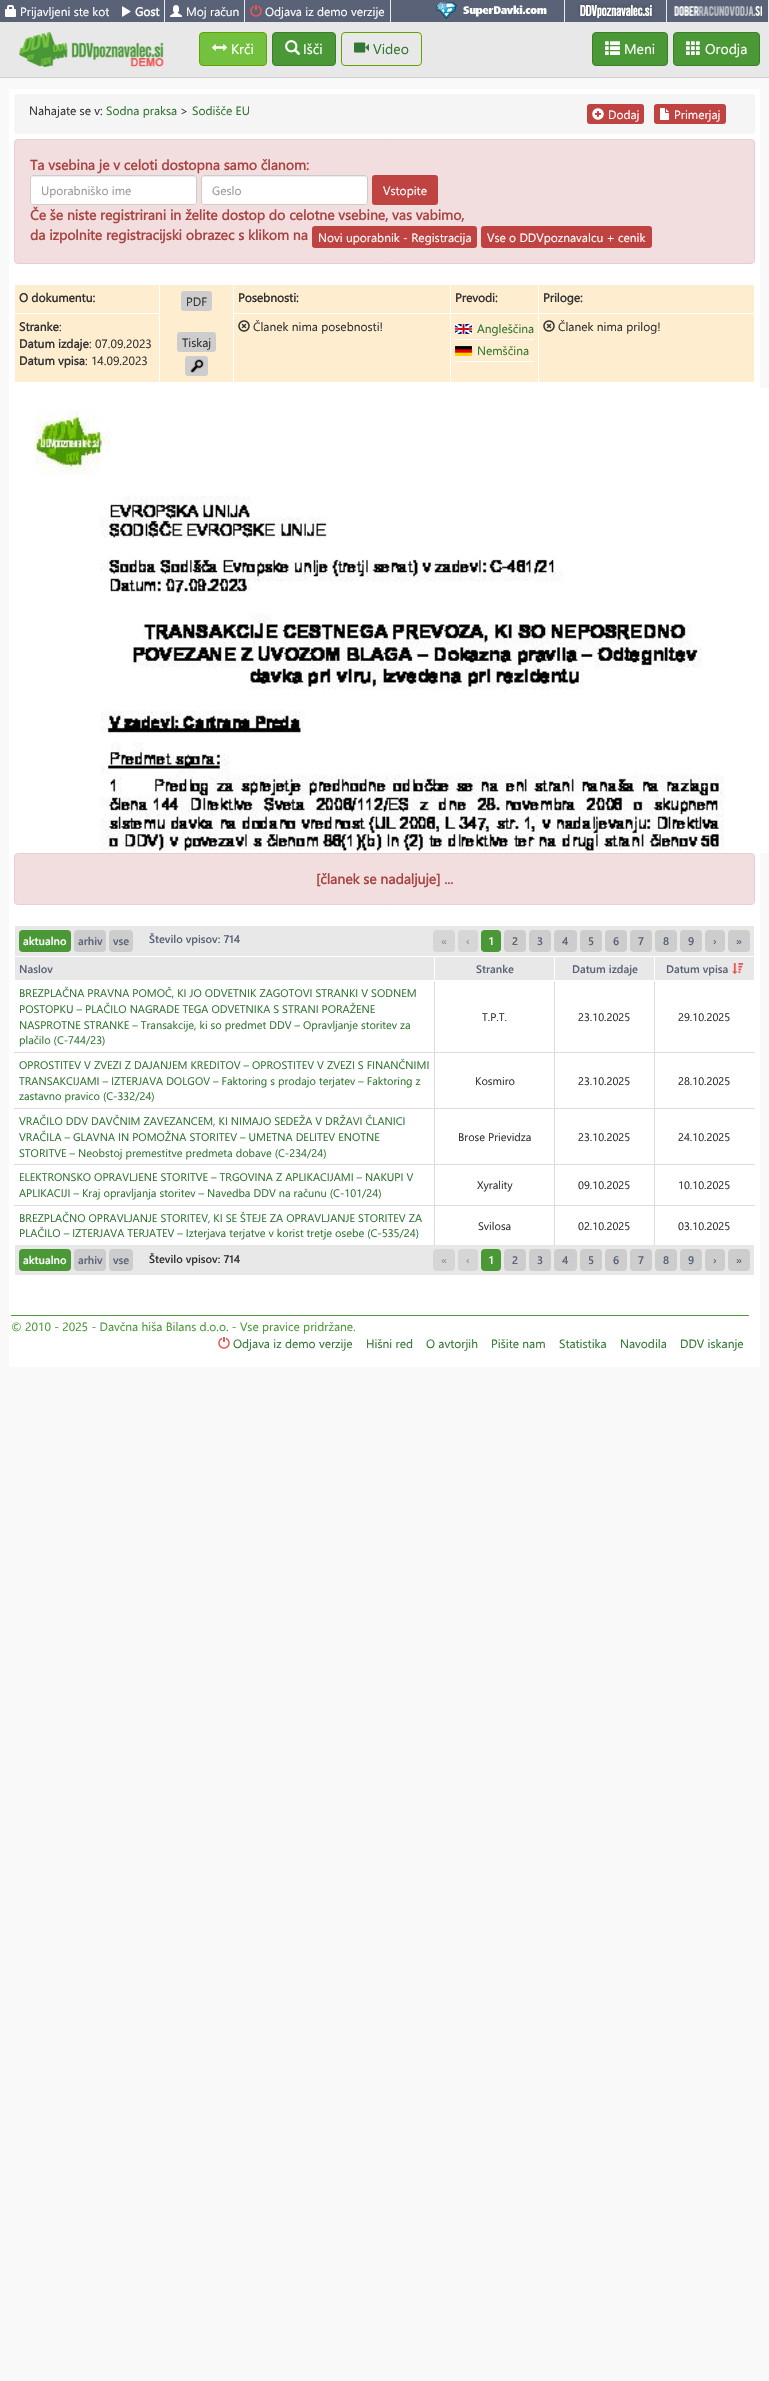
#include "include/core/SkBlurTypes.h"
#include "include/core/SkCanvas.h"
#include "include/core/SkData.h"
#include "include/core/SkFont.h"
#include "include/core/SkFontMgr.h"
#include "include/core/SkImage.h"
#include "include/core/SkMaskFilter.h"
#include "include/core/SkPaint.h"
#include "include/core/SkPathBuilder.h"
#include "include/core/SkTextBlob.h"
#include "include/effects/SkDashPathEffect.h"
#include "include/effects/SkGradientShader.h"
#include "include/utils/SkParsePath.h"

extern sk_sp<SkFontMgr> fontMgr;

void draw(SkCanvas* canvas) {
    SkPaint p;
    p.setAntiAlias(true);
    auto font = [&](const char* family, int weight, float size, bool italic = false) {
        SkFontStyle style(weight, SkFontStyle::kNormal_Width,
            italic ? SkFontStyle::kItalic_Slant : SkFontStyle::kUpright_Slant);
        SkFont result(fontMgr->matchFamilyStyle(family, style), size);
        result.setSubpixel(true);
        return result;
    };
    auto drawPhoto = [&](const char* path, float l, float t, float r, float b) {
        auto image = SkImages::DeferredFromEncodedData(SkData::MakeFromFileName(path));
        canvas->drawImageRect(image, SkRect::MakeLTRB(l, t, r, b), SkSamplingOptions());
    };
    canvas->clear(0xFFF9F9F9);
    p.setColor(0xFF596276);
    canvas->drawRect(SkRect::MakeLTRB(0, 0, 768, 22), p);
    drawPhoto("media/1.png", 5, 5, 16, 17);
    auto font1 = font("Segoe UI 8", 400, 12);
    p.setColor(0xFFFFFFFF);
    canvas->drawString("Prijavljeni ste kot", 20, 16, font1, p);
    p.setColor(0xFFEBEBEB);
    canvas->drawRect(SkRect::MakeLTRB(164, 0, 165, 22), p);
    drawPhoto("media/2.png", 122, 6, 131, 17);
    auto font2 = font("Segoe UI 8", 700, 12);
    p.setColor(0xFFFFFFFF);
    canvas->drawString("Gost", 135, 16, font2, p);
    p.setColor(0xFFEBEBEB);
    canvas->drawRect(SkRect::MakeLTRB(244, 0, 245, 22), p);
    drawPhoto("media/3.png", 170, 5, 182, 17);
    p.setColor(0xFFFFFFFF);
    canvas->drawString("Moj račun", 186, 16, font1, p);
    p.setColor(0xFFEBEBEB);
    canvas->drawRect(SkRect::MakeLTRB(390, 0, 391, 22), p);
    drawPhoto("media/4.png", 250, 5, 262, 17);
    p.setColor(0xFFFFFFFF);
    canvas->drawString("Odjava iz demo verzije", 265, 16, font1, p);
    drawPhoto("media/5.png", 436, 2, 547, 19);
    p.setColor(0xFFEBEBEB);
    canvas->drawRect(SkRect::MakeLTRB(564, 0, 565, 22), p);
    drawPhoto("media/6.png", 577, 2, 655, 20);
    canvas->drawRect(SkRect::MakeLTRB(666, 0, 667, 22), p);
    drawPhoto("media/7.png", 674, 6, 762, 16);
    {
        const struct { float l, t, r, b; SkColor color; } items[] = {
            {768, 0, 769, 22, 0xFFEBEBEB},
            {0, 22, 769, 77, 0xFFE8E8E8},
            {0, 77, 769, 78, 0xFFCFCFCF},
        };
        for (auto [l, t, r, b, color] : items) {
            p.setColor(color);
            canvas->drawRect(SkRect::MakeLTRB(l, t, r, b), p);
        }
    }
    drawPhoto("media/8.png", 19, 32, 164, 67);
    p.setColor(0xFF74C140);
    canvas->drawRoundRect(SkRect::MakeLTRB(199.5f, 32.5f, 266.5f, 65.5f), 3.5f, 3.5f, p);
    p.setStyle(SkPaint::kStroke_Style);
    p.setStrokeWidth(1);
    p.setColor(0xFF63A300);
    canvas->drawRoundRect(SkRect::MakeLTRB(199.5f, 32.5f, 266.5f, 65.5f), 3.5f, 3.5f, p);
    drawPhoto("media/9.png", 212, 44, 227, 51);
    auto font3 = font("Segoe UI 8", 400, 14);
    p.setStyle(SkPaint::kFill_Style);
    p.setColor(0xFFFFFFFF);
    canvas->drawString("Krči", 231, 54, font3, p);
    p.setColor(0xFF4B9837);
    canvas->drawRoundRect(SkRect::MakeLTRB(272.5f, 32.5f, 335.5f, 65.5f), 3.5f, 3.5f, p);
    p.setStyle(SkPaint::kStroke_Style);
    p.setColor(0xFF388125);
    canvas->drawRoundRect(SkRect::MakeLTRB(272.5f, 32.5f, 335.5f, 65.5f), 3.5f, 3.5f, p);
    drawPhoto("media/10.png", 285, 40, 301, 55);
    p.setStyle(SkPaint::kFill_Style);
    p.setColor(0xFFFFFFFF);
    canvas->drawString("Išči", 303, 54, font3, p);
    p.setStyle(SkPaint::kStroke_Style);
    p.setColor(0xFF63A300);
    canvas->drawRoundRect(SkRect::MakeLTRB(341.5f, 32.5f, 421.5f, 65.5f), 3.5f, 3.5f, p);
    drawPhoto("media/11.png", 354, 42, 369, 53);
    p.setStyle(SkPaint::kFill_Style);
    p.setColor(0xFF327734);
    canvas->drawString("Video", 373, 54, font3, p);
    p.setColor(0xFF4B9837);
    canvas->drawRoundRect(SkRect::MakeLTRB(592.5f, 32.5f, 667.5f, 65.5f), 3.5f, 3.5f, p);
    p.setStyle(SkPaint::kStroke_Style);
    p.setColor(0xFF388125);
    canvas->drawRoundRect(SkRect::MakeLTRB(592.5f, 32.5f, 667.5f, 65.5f), 3.5f, 3.5f, p);
    drawPhoto("media/12.png", 605, 41, 620, 55);
    p.setStyle(SkPaint::kFill_Style);
    p.setColor(0xFFFFFFFF);
    canvas->drawString("Meni", 624, 54, font3, p);
    p.setColor(0xFF4B9837);
    canvas->drawRoundRect(SkRect::MakeLTRB(673.5f, 32.5f, 759.5f, 65.5f), 3.5f, 3.5f, p);
    p.setStyle(SkPaint::kStroke_Style);
    p.setColor(0xFF388125);
    canvas->drawRoundRect(SkRect::MakeLTRB(673.5f, 32.5f, 759.5f, 65.5f), 3.5f, 3.5f, p);
    drawPhoto("media/13.png", 686, 41, 700, 55);
    p.setStyle(SkPaint::kFill_Style);
    p.setColor(0xFFFFFFFF);
    canvas->drawString("Orodja", 705, 54, font3, p);
    canvas->drawRect(SkRect::MakeLTRB(9, 89, 760, 1367), p);
    p.setColor(0xFFF5F5F5);
    canvas->drawRoundRect(SkRect::MakeLTRB(14, 94, 755, 134), 4, 4, p);
    p.setColor(0xFF333333);
    canvas->drawString("Nahajate se v:", 29, 115, font1, p);
    p.setColor(0xFF327734);
    canvas->drawString("Sodna praksa", 106, 115, font1, p);
    p.setColor(0xFF333333);
    canvas->drawString(">", 180, 115, font1, p);
    p.setColor(0xFF327734);
    canvas->drawString("Sodišče EU", 192, 115, font1, p);
    p.setColor(0xFFBF4341);
    canvas->drawRoundRect(SkRect::MakeLTRB(587, 104, 644, 124), 3, 3, p);
    drawPhoto("media/14.png", 592, 108, 604, 120);
    p.setColor(0xFFFFFFFF);
    canvas->drawString("Dodaj", 608, 119, font1, p);
    p.setColor(0xFFBF4341);
    canvas->drawRoundRect(SkRect::MakeLTRB(654, 104, 726, 124), 3, 3, p);
    drawPhoto("media/15.png", 660, 108, 669, 120);
    p.setColor(0xFFFFFFFF);
    canvas->drawString("Primerjaj", 674, 119, font1, p);
    p.setColor(0xFFF2DEDE);
    canvas->drawRoundRect(SkRect::MakeLTRB(14.5f, 139.5f, 754.5f, 263.5f), 3.5f, 3.5f, p);
    p.setStyle(SkPaint::kStroke_Style);
    p.setColor(0xFFEBCCD1);
    canvas->drawRoundRect(SkRect::MakeLTRB(14.5f, 139.5f, 754.5f, 263.5f), 3.5f, 3.5f, p);
    auto font4 = font("Segoe UI 8", 700, 14);
    p.setStyle(SkPaint::kFill_Style);
    p.setColor(0xFFA94442);
    canvas->drawString("Ta vsebina je v celoti dostopna samo članom:", 30, 170, font4, p);
    p.setColor(0xFFFFFFFF);
    canvas->drawRoundRect(SkRect::MakeLTRB(30, 175, 197, 205), 3, 3, p);
    p.setColor(0xFFECECEC);
    canvas->drawPath(SkPathBuilder().moveTo(33, 177).lineTo(194, 177).cubicTo(195, 177, 196, 178, 196, 179).cubicTo(196, 178, 196, 176, 194, 176).lineTo(33, 176).cubicTo(31, 176, 31, 178, 31, 179).cubicTo(31, 178, 32, 177, 33, 177).close().detach(), p);
    p.setStyle(SkPaint::kStroke_Style);
    p.setColor(0xFFCCCCCC);
    canvas->drawRoundRect(SkRect::MakeLTRB(30.5f, 175.5f, 196.5f, 204.5f), 2.5f, 2.5f, p);
    p.setStyle(SkPaint::kFill_Style);
    p.setColor(0xFF999999);
    canvas->drawString("Uporabniško ime", 41, 195, font1, p);
    p.setColor(0xFFFFFFFF);
    canvas->drawRoundRect(SkRect::MakeLTRB(201, 175, 368, 205), 3, 3, p);
    p.setColor(0xFFECECEC);
    canvas->drawPath(SkPathBuilder().moveTo(204, 177).lineTo(365, 177).cubicTo(366, 177, 367, 178, 367, 179).cubicTo(367, 178, 367, 176, 365, 176).lineTo(204, 176).cubicTo(202, 176, 202, 178, 202, 179).cubicTo(202, 178, 203, 177, 204, 177).close().detach(), p);
    p.setStyle(SkPaint::kStroke_Style);
    p.setColor(0xFFCCCCCC);
    canvas->drawRoundRect(SkRect::MakeLTRB(201.5f, 175.5f, 367.5f, 204.5f), 2.5f, 2.5f, p);
    p.setStyle(SkPaint::kFill_Style);
    p.setColor(0xFF999999);
    canvas->drawString("Geslo", 212, 195, font1, p);
    p.setColor(0xFFBF4341);
    canvas->drawRoundRect(SkRect::MakeLTRB(372, 175, 438, 205), 3, 3, p);
    p.setColor(0xFFFFFFFF);
    canvas->drawString("Vstopite", 383, 195, font1, p);
    p.setColor(0xFFA94442);
    canvas->drawString("Če še niste registrirani in želite dostop do celotne vsebine, vas vabimo,", 30, 220, font4, p);
    canvas->drawString("da izpolnite registracijski obrazec s klikom na", 30, 240, font4, p);
    p.setColor(0xFFBF4341);
    canvas->drawRoundRect(SkRect::MakeLTRB(312, 226, 477, 248), 3, 3, p);
    p.setColor(0xFFFFFFFF);
    canvas->drawString("Novi uporabnik - Registracija", 318, 242, font1, p);
    p.setColor(0xFFBF4341);
    canvas->drawRoundRect(SkRect::MakeLTRB(481, 226, 652, 248), 3, 3, p);
    p.setColor(0xFFFFFFFF);
    canvas->drawString("Vse o DDVpoznavalcu + cenik", 487, 242, font1, p);
    p.setColor(0xFFFEEDCF);
    canvas->drawRect(SkRect::MakeLTRB(15, 285, 754, 382), p);
    p.setColor(0xFF333333);
    canvas->drawString("O dokumentu:", 19, 302, font2, p);
    p.setColor(0xFFFFFFFF);
    canvas->drawRect(SkRect::MakeLTRB(14, 313, 160, 314), p);
    canvas->drawRect(SkRect::MakeLTRB(159, 284, 160, 383), p);
    p.setColor(0xFFCDCDCD);
    canvas->drawRoundRect(SkRect::MakeLTRB(181, 291, 212, 311), 3, 3, p);
    p.setColor(0xFF333333);
    canvas->drawString("PDF", 186, 306, font1, p);
    p.setColor(0xFFCDCDCD);
    canvas->drawRoundRect(SkRect::MakeLTRB(177, 332, 216, 352), 3, 3, p);
    p.setColor(0xFF333333);
    canvas->drawString("Tiskaj", 182, 347, font1, p);
    p.setColor(0xFFCDCDCD);
    canvas->drawRoundRect(SkRect::MakeLTRB(185, 356, 208, 376), 3, 3, p);
    drawPhoto("media/16.png", 190, 359, 204, 373);
    p.setColor(0xFF333333);
    canvas->drawString("Posebnosti:", 238, 302, font2, p);
    {
        const struct { float l, t, r, b; SkColor color; } items[] = {
            {538, 313, 755, 314, 0xFFFFFFFF},
            {538, 313, 539, 383, 0xFFFFFFFF},
            {450, 313, 539, 314, 0xFFFFFFFF},
            {450, 313, 451, 383, 0xFFFFFFFF},
            {233, 313, 451, 314, 0xFFFFFFFF},
            {450, 284, 451, 314, 0xFFFFFFFF},
        };
        for (auto [l, t, r, b, color] : items) {
            p.setColor(color);
            canvas->drawRect(SkRect::MakeLTRB(l, t, r, b), p);
        }
    }
    p.setColor(0xFF333333);
    canvas->drawString("Prevodi:", 455, 302, font2, p);
    p.setColor(0xFFFFFFFF);
    canvas->drawRect(SkRect::MakeLTRB(538, 284, 539, 314), p);
    p.setColor(0xFF333333);
    canvas->drawString("Priloge:", 543, 302, font2, p);
    canvas->drawString("Stranke", 19, 331, font2, p);
    canvas->drawString(":", 59, 331, font1, p);
    canvas->drawString("Datum izdaje", 19, 348, font2, p);
    canvas->drawString(": 07.09.2023", 89, 348, font1, p);
    canvas->drawString("Datum vpisa", 19, 365, font2, p);
    canvas->drawString(": 14.09.2023", 85, 365, font1, p);
    p.setColor(0xFFFFFFFF);
    canvas->drawRect(SkRect::MakeLTRB(233, 284, 234, 383), p);
    drawPhoto("media/17.png", 238, 320, 250, 332);
    p.setColor(0xFF333333);
    canvas->drawString("Članek nima posebnosti!", 253, 331, font1, p);
    drawPhoto("media/18.png", 455, 324, 472, 334);
    p.setColor(0xFFFFFFFF);
    canvas->drawRect(SkRect::MakeLTRB(455, 339, 534, 340), p);
    p.setColor(0xFF327734);
    canvas->drawString("Angleščina", 477, 333, font1, p);
    drawPhoto("media/19.png", 455, 346, 472, 356);
    p.setColor(0xFFFFFFFF);
    canvas->drawRect(SkRect::MakeLTRB(455, 361, 534, 362), p);
    p.setColor(0xFF327734);
    canvas->drawString("Nemščina", 477, 355, font1, p);
    drawPhoto("media/17.png", 543, 320, 555, 332);
    p.setColor(0xFF333333);
    canvas->drawString("Članek nima prilog!", 558, 331, font1, p);
    drawPhoto("media/20.png", 34, 388, 769, 853);
    p.setColor(0xFFF2DEDE);
    canvas->drawRoundRect(SkRect::MakeLTRB(14.5f, 853.5f, 754.5f, 904.5f), 3.5f, 3.5f, p);
    p.setStyle(SkPaint::kStroke_Style);
    p.setColor(0xFFEBCCD1);
    canvas->drawRoundRect(SkRect::MakeLTRB(14.5f, 853.5f, 754.5f, 904.5f), 3.5f, 3.5f, p);
    p.setStyle(SkPaint::kFill_Style);
    p.setColor(0xFFA94442);
    canvas->drawString("[članek se nadaljuje] ...", 316, 884, font4, p);
    p.setColor(0xFFE8E8E8);
    canvas->drawRect(SkRect::MakeLTRB(15, 926, 754, 956), p);
    p.setColor(0xFF4B9837);
    canvas->drawRoundRect(SkRect::MakeLTRB(19, 930, 71, 952), 4, 4, p);
    auto font5 = font("Segoe UI", 600, 11);
    p.setColor(0xFFFFFFFF);
    canvas->drawString("aktualno", 23, 945, font5, p);
    p.setColor(0xFFCDCDCD);
    canvas->drawRoundRect(SkRect::MakeLTRB(74, 930, 106, 952), 4, 4, p);
    p.setColor(0xFF596276);
    canvas->drawString("arhiv", 78, 945, font5, p);
    p.setColor(0xFFCDCDCD);
    canvas->drawRoundRect(SkRect::MakeLTRB(109, 930, 133, 952), 4, 4, p);
    p.setColor(0xFF596276);
    canvas->drawString("vse", 113, 945, font5, p);
    canvas->drawString("Število vpisov: 714", 149, 943, font5, p);
    p.setColor(0xFFD6D6D6);
    canvas->drawRoundRect(SkRect::MakeLTRB(433, 930, 455, 952), 4, 4, p);
    p.setColor(0xFF8B919E);
    canvas->drawString("«", 441, 945, font5, p);
    p.setColor(0xFFD6D6D6);
    canvas->drawRoundRect(SkRect::MakeLTRB(458, 930, 478, 952), 4, 4, p);
    p.setColor(0xFF8B919E);
    canvas->drawString("‹", 466, 945, font5, p);
    p.setColor(0xFF4B9837);
    canvas->drawRoundRect(SkRect::MakeLTRB(481, 930, 501, 952), 4, 4, p);
    p.setColor(0xFFFFFFFF);
    canvas->drawString("1", 489, 945, font5, p);
    p.setColor(0xFFCDCDCD);
    canvas->drawRoundRect(SkRect::MakeLTRB(504, 930, 526, 952), 4, 4, p);
    p.setColor(0xFF596276);
    canvas->drawString("2", 512, 945, font5, p);
    p.setColor(0xFFCDCDCD);
    canvas->drawRoundRect(SkRect::MakeLTRB(529, 930, 551, 952), 4, 4, p);
    p.setColor(0xFF596276);
    canvas->drawString("3", 537, 945, font5, p);
    p.setColor(0xFFCDCDCD);
    canvas->drawRoundRect(SkRect::MakeLTRB(554, 930, 577, 952), 4, 4, p);
    p.setColor(0xFF596276);
    canvas->drawString("4", 562, 945, font5, p);
    p.setColor(0xFFCDCDCD);
    canvas->drawRoundRect(SkRect::MakeLTRB(580, 930, 602, 952), 4, 4, p);
    p.setColor(0xFF596276);
    canvas->drawString("5", 588, 945, font5, p);
    p.setColor(0xFFCDCDCD);
    canvas->drawRoundRect(SkRect::MakeLTRB(605, 930, 627, 952), 4, 4, p);
    p.setColor(0xFF596276);
    canvas->drawString("6", 613, 945, font5, p);
    p.setColor(0xFFCDCDCD);
    canvas->drawRoundRect(SkRect::MakeLTRB(630, 930, 652, 952), 4, 4, p);
    p.setColor(0xFF596276);
    canvas->drawString("7", 638, 945, font5, p);
    p.setColor(0xFFCDCDCD);
    canvas->drawRoundRect(SkRect::MakeLTRB(655, 930, 677, 952), 4, 4, p);
    p.setColor(0xFF596276);
    canvas->drawString("8", 663, 945, font5, p);
    p.setColor(0xFFCDCDCD);
    canvas->drawRoundRect(SkRect::MakeLTRB(680, 930, 702, 952), 4, 4, p);
    p.setColor(0xFF596276);
    canvas->drawString("9", 688, 945, font5, p);
    p.setColor(0xFFCDCDCD);
    canvas->drawRoundRect(SkRect::MakeLTRB(705, 930, 725, 952), 4, 4, p);
    p.setColor(0xFF596276);
    canvas->drawString("›", 713, 945, font5, p);
    p.setColor(0xFFCDCDCD);
    canvas->drawRoundRect(SkRect::MakeLTRB(728, 930, 750, 952), 4, 4, p);
    p.setColor(0xFF596276);
    canvas->drawString("»", 736, 945, font5, p);
    p.setColor(0xFFE8E8E8);
    canvas->drawRect(SkRect::MakeLTRB(15, 957, 434, 980), p);
    p.setColor(0xFF596276);
    canvas->drawString("Naslov", 19, 973, font5, p);
    {
        const struct { float l, t, r, b; SkColor color; } items[] = {
            {435, 957, 554, 980, 0xFFE8E8E8},
            {654, 1052, 755, 1053, 0xFFDDDDDD},
            {654, 1108, 755, 1109, 0xFFDDDDDD},
            {654, 1164, 755, 1165, 0xFFDDDDDD},
            {654, 1205, 755, 1206, 0xFFDDDDDD},
            {15, 1245, 754, 1275, 0xFFE8E8E8},
            {654, 1205, 655, 1246, 0xFFDDDDDD},
            {554, 1205, 655, 1206, 0xFFDDDDDD},
            {654, 1164, 655, 1206, 0xFFDDDDDD},
            {554, 1164, 655, 1165, 0xFFDDDDDD},
            {654, 1108, 655, 1165, 0xFFDDDDDD},
            {554, 1108, 655, 1109, 0xFFDDDDDD},
            {654, 1052, 655, 1109, 0xFFDDDDDD},
            {554, 1052, 655, 1053, 0xFFDDDDDD},
            {554, 1205, 555, 1246, 0xFFDDDDDD},
            {434, 1205, 555, 1206, 0xFFDDDDDD},
            {554, 1164, 555, 1206, 0xFFDDDDDD},
            {434, 1164, 555, 1165, 0xFFDDDDDD},
            {554, 1108, 555, 1165, 0xFFDDDDDD},
            {434, 1108, 555, 1109, 0xFFDDDDDD},
            {554, 1052, 555, 1109, 0xFFDDDDDD},
            {434, 1052, 555, 1053, 0xFFDDDDDD},
            {434, 1205, 435, 1246, 0xFFDDDDDD},
            {14, 1205, 435, 1206, 0xFFDDDDDD},
            {434, 1164, 435, 1206, 0xFFDDDDDD},
            {14, 1164, 435, 1165, 0xFFDDDDDD},
            {434, 1108, 435, 1165, 0xFFDDDDDD},
            {14, 1108, 435, 1109, 0xFFDDDDDD},
            {434, 1052, 435, 1109, 0xFFDDDDDD},
            {14, 1052, 435, 1053, 0xFFDDDDDD},
            {434, 980, 435, 1053, 0xFFDDDDDD},
            {434, 980, 435, 981, 0xFFFFFFFF},
        };
        for (auto [l, t, r, b, color] : items) {
            p.setColor(color);
            canvas->drawRect(SkRect::MakeLTRB(l, t, r, b), p);
        }
    }
    p.setColor(0xFF596276);
    canvas->drawString("Stranke", 476, 973, font5, p);
    {
        const struct { float l, t, r, b; SkColor color; } items[] = {
            {555, 957, 654, 980, 0xFFE8E8E8},
            {554, 980, 555, 1053, 0xFFDDDDDD},
            {554, 980, 555, 981, 0xFFFFFFFF},
        };
        for (auto [l, t, r, b, color] : items) {
            p.setColor(color);
            canvas->drawRect(SkRect::MakeLTRB(l, t, r, b), p);
        }
    }
    p.setColor(0xFF596276);
    canvas->drawString("Datum izdaje", 572, 973, font5, p);
    {
        const struct { float l, t, r, b; SkColor color; } items[] = {
            {655, 957, 754, 980, 0xFFE8E8E8},
            {654, 980, 655, 1053, 0xFFDDDDDD},
            {654, 980, 655, 981, 0xFFFFFFFF},
        };
        for (auto [l, t, r, b, color] : items) {
            p.setColor(color);
            canvas->drawRect(SkRect::MakeLTRB(l, t, r, b), p);
        }
    }
    p.setColor(0xFF596276);
    canvas->drawString("Datum vpisa", 666, 973, font5, p);
    drawPhoto("media/21.png", 732, 963, 744, 974);
    auto font6 = font("Segoe UI 8", 400, 11);
    p.setColor(0xFF327734);
    {
        const struct { const char* s; float x, y; } items[] = {
            {"BREZPLAČNA PRAVNA POMOČ, KI JO ODVETNIK ZAGOTOVI STRANKI V SODNEM", 19, 997},
            {"POSTOPKU – PLAČILO NAGRADE TEGA ODVETNIKA S STRANI PORAŽENE", 19, 1013},
            {"NASPROTNE STRANKE – Transakcije, ki so predmet DDV – Opravljanje storitev za", 19, 1029},
            {"plačilo (C-744/23)", 19, 1044},
        };
        for (auto [s, x, y] : items) {
            canvas->drawString(s, x, y, font6, p);
        }
    }
    p.setColor(0xFF333333);
    {
        const struct { const char* s; float x, y; } items[] = {
            {"T.P.T.", 482, 1021},
            {"23.10.2025", 578, 1021},
            {"29.10.2025", 678, 1021},
        };
        for (auto [s, x, y] : items) {
            canvas->drawString(s, x, y, font6, p);
        }
    }
    p.setColor(0xFF327734);
    {
        const struct { const char* s; float x, y; } items[] = {
            {"OPROSTITEV V ZVEZI Z DAJANJEM KREDITOV – OPROSTITEV V ZVEZI S FINANČNIMI", 19, 1069},
            {"TRANSAKCIJAMI – IZTERJAVA DOLGOV – Faktoring s prodajo terjatev – Faktoring z", 19, 1085},
            {"zastavno pravico (C-332/24)", 19, 1100},
        };
        for (auto [s, x, y] : items) {
            canvas->drawString(s, x, y, font6, p);
        }
    }
    p.setColor(0xFF333333);
    {
        const struct { const char* s; float x, y; } items[] = {
            {"Kosmiro", 475, 1085},
            {"23.10.2025", 578, 1085},
            {"28.10.2025", 678, 1085},
        };
        for (auto [s, x, y] : items) {
            canvas->drawString(s, x, y, font6, p);
        }
    }
    p.setColor(0xFF327734);
    {
        const struct { const char* s; float x, y; } items[] = {
            {"VRAČILO DDV DAVČNIM ZAVEZANCEM, KI NIMAJO SEDEŽA V DRŽAVI ČLANICI", 19, 1125},
            {"VRAČILA – GLAVNA IN POMOŽNA STORITEV – UMETNA DELITEV ENOTNE", 19, 1141},
            {"STORITVE – Neobstoj premestitve predmeta dobave (C-234/24)", 19, 1157},
        };
        for (auto [s, x, y] : items) {
            canvas->drawString(s, x, y, font6, p);
        }
    }
    p.setColor(0xFF333333);
    {
        const struct { const char* s; float x, y; } items[] = {
            {"Brose Prievidza", 458, 1141},
            {"23.10.2025", 578, 1141},
            {"24.10.2025", 678, 1141},
        };
        for (auto [s, x, y] : items) {
            canvas->drawString(s, x, y, font6, p);
        }
    }
    p.setColor(0xFF327734);
    canvas->drawString("ELEKTRONSKO OPRAVLJENE STORITVE – TRGOVINA Z APLIKACIJAMI – NAKUPI V", 19, 1181, font6, p);
    canvas->drawString("APLIKACIJI – Kraj opravljanja storitev – Navedba DDV na računu (C-101/24)", 19, 1197, font6, p);
    p.setColor(0xFF333333);
    {
        const struct { const char* s; float x, y; } items[] = {
            {"Xyrality", 477, 1189},
            {"09.10.2025", 578, 1189},
            {"10.10.2025", 678, 1189},
        };
        for (auto [s, x, y] : items) {
            canvas->drawString(s, x, y, font6, p);
        }
    }
    p.setColor(0xFF327734);
    canvas->drawString("BREZPLAČNO OPRAVLJANJE STORITEV, KI SE ŠTEJE ZA OPRAVLJANJE STORITEV ZA", 19, 1222, font6, p);
    canvas->drawString("PLAČILO – IZTERJAVA TERJATEV – Izterjava terjatve v korist tretje osebe (C-535/24)", 19, 1237, font6, p);
    p.setColor(0xFF333333);
    {
        const struct { const char* s; float x, y; } items[] = {
            {"Svilosa", 478, 1230},
            {"02.10.2025", 578, 1230},
            {"03.10.2025", 678, 1230},
        };
        for (auto [s, x, y] : items) {
            canvas->drawString(s, x, y, font6, p);
        }
    }
    p.setColor(0xFF4B9837);
    canvas->drawRoundRect(SkRect::MakeLTRB(19, 1249, 71, 1271), 4, 4, p);
    p.setColor(0xFFFFFFFF);
    canvas->drawString("aktualno", 23, 1264, font5, p);
    p.setColor(0xFFCDCDCD);
    canvas->drawRoundRect(SkRect::MakeLTRB(74, 1249, 106, 1271), 4, 4, p);
    p.setColor(0xFF596276);
    canvas->drawString("arhiv", 78, 1264, font5, p);
    p.setColor(0xFFCDCDCD);
    canvas->drawRoundRect(SkRect::MakeLTRB(109, 1249, 133, 1271), 4, 4, p);
    p.setColor(0xFF596276);
    canvas->drawString("vse", 113, 1264, font5, p);
    p.setColor(0xFF333333);
    canvas->drawString("Število vpisov: 714", 149, 1263, font5, p);
    p.setColor(0xFFD6D6D6);
    canvas->drawRoundRect(SkRect::MakeLTRB(433, 1249, 455, 1271), 4, 4, p);
    p.setColor(0xFF8B919E);
    canvas->drawString("«", 441, 1264, font5, p);
    p.setColor(0xFFD6D6D6);
    canvas->drawRoundRect(SkRect::MakeLTRB(458, 1249, 478, 1271), 4, 4, p);
    p.setColor(0xFF8B919E);
    canvas->drawString("‹", 466, 1264, font5, p);
    p.setColor(0xFF4B9837);
    canvas->drawRoundRect(SkRect::MakeLTRB(481, 1249, 501, 1271), 4, 4, p);
    p.setColor(0xFFFFFFFF);
    canvas->drawString("1", 489, 1264, font5, p);
    p.setColor(0xFFCDCDCD);
    canvas->drawRoundRect(SkRect::MakeLTRB(504, 1249, 526, 1271), 4, 4, p);
    p.setColor(0xFF596276);
    canvas->drawString("2", 512, 1264, font5, p);
    p.setColor(0xFFCDCDCD);
    canvas->drawRoundRect(SkRect::MakeLTRB(529, 1249, 551, 1271), 4, 4, p);
    p.setColor(0xFF596276);
    canvas->drawString("3", 537, 1264, font5, p);
    p.setColor(0xFFCDCDCD);
    canvas->drawRoundRect(SkRect::MakeLTRB(554, 1249, 577, 1271), 4, 4, p);
    p.setColor(0xFF596276);
    canvas->drawString("4", 562, 1264, font5, p);
    p.setColor(0xFFCDCDCD);
    canvas->drawRoundRect(SkRect::MakeLTRB(580, 1249, 602, 1271), 4, 4, p);
    p.setColor(0xFF596276);
    canvas->drawString("5", 588, 1264, font5, p);
    p.setColor(0xFFCDCDCD);
    canvas->drawRoundRect(SkRect::MakeLTRB(605, 1249, 627, 1271), 4, 4, p);
    p.setColor(0xFF596276);
    canvas->drawString("6", 613, 1264, font5, p);
    p.setColor(0xFFCDCDCD);
    canvas->drawRoundRect(SkRect::MakeLTRB(630, 1249, 652, 1271), 4, 4, p);
    p.setColor(0xFF596276);
    canvas->drawString("7", 638, 1264, font5, p);
    p.setColor(0xFFCDCDCD);
    canvas->drawRoundRect(SkRect::MakeLTRB(655, 1249, 677, 1271), 4, 4, p);
    p.setColor(0xFF596276);
    canvas->drawString("8", 663, 1264, font5, p);
    p.setColor(0xFFCDCDCD);
    canvas->drawRoundRect(SkRect::MakeLTRB(680, 1249, 702, 1271), 4, 4, p);
    p.setColor(0xFF596276);
    canvas->drawString("9", 688, 1264, font5, p);
    p.setColor(0xFFCDCDCD);
    canvas->drawRoundRect(SkRect::MakeLTRB(705, 1249, 725, 1271), 4, 4, p);
    p.setColor(0xFF596276);
    canvas->drawString("›", 713, 1264, font5, p);
    p.setColor(0xFFCDCDCD);
    canvas->drawRoundRect(SkRect::MakeLTRB(728, 1249, 750, 1271), 4, 4, p);
    p.setColor(0xFF596276);
    canvas->drawString("»", 736, 1264, font5, p);
    p.setColor(0xFF4B9837);
    canvas->drawRect(SkRect::MakeLTRB(11, 1315, 749, 1316), p);
    canvas->drawString("© 2010 - 2025 - Davčna hiša Bilans d.o.o. - Vse pravice pridržane.", 11, 1331, font1, p);
    drawPhoto("media/22.png", 218, 1337, 230, 1349);
    p.setColor(0xFF327734);
    {
        const struct { const char* s; float x, y; } items[] = {
            {"Odjava iz demo verzije", 233, 1348},
            {"Hišni red", 366, 1348},
            {"O avtorjih", 426, 1348},
            {"Pišite nam", 491, 1348},
            {"Statistika", 559, 1348},
            {"Navodila", 620, 1348},
            {"DDV iskanje", 680, 1348},
        };
        for (auto [s, x, y] : items) {
            canvas->drawString(s, x, y, font1, p);
        }
    }
}
